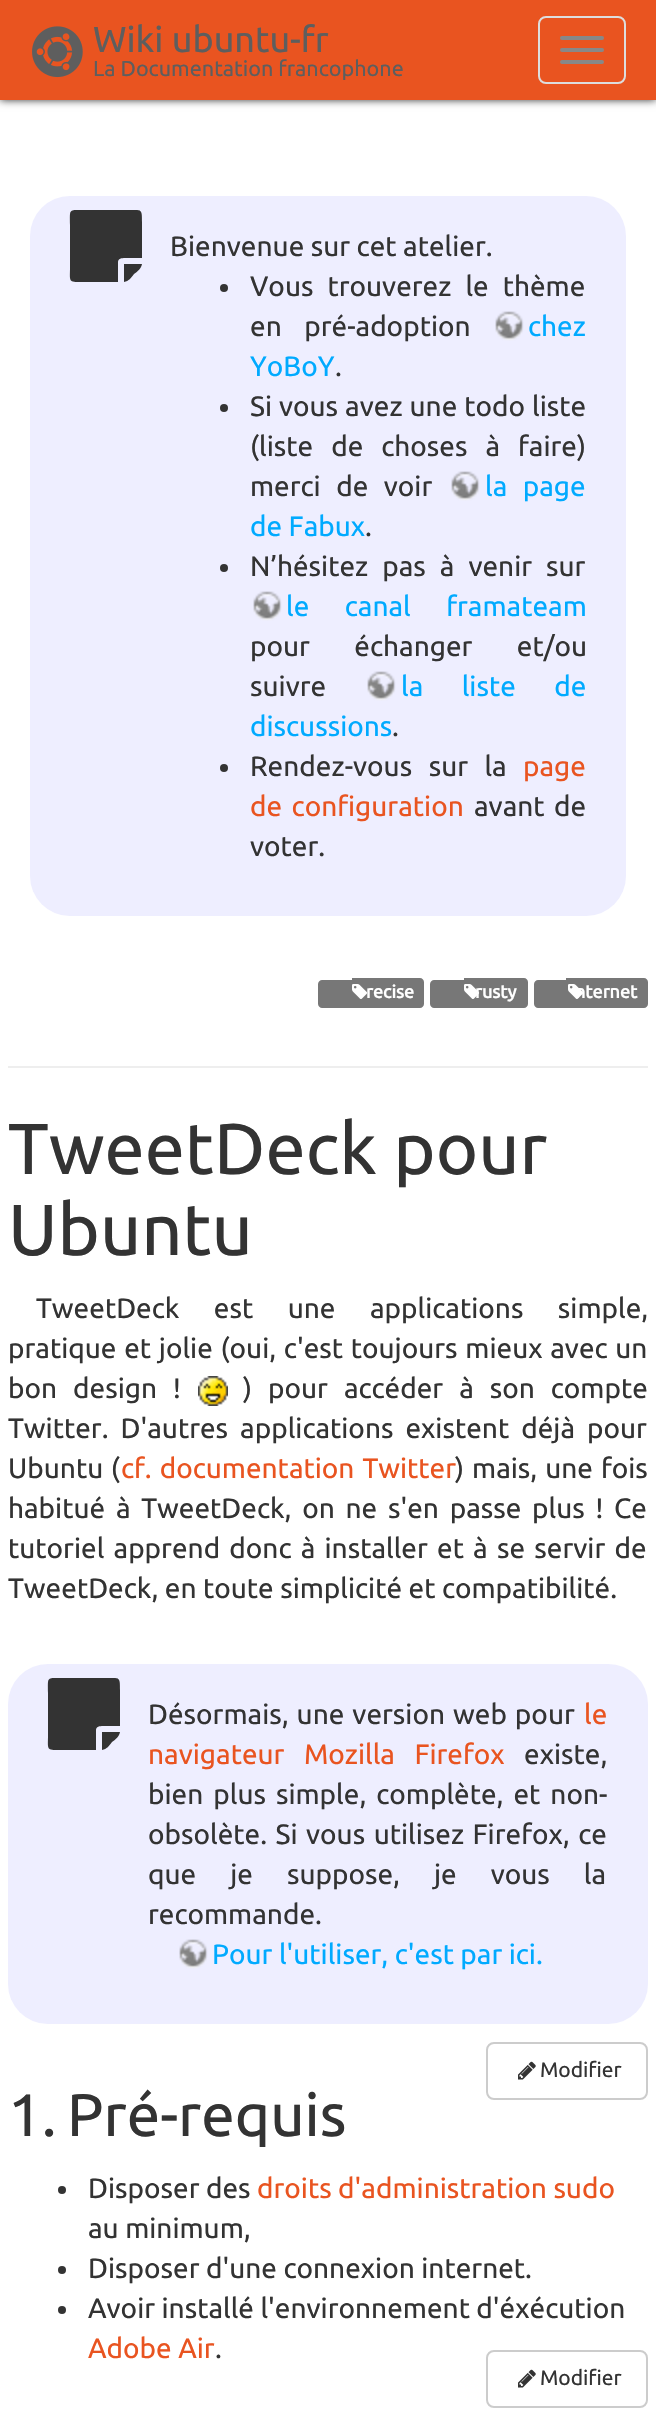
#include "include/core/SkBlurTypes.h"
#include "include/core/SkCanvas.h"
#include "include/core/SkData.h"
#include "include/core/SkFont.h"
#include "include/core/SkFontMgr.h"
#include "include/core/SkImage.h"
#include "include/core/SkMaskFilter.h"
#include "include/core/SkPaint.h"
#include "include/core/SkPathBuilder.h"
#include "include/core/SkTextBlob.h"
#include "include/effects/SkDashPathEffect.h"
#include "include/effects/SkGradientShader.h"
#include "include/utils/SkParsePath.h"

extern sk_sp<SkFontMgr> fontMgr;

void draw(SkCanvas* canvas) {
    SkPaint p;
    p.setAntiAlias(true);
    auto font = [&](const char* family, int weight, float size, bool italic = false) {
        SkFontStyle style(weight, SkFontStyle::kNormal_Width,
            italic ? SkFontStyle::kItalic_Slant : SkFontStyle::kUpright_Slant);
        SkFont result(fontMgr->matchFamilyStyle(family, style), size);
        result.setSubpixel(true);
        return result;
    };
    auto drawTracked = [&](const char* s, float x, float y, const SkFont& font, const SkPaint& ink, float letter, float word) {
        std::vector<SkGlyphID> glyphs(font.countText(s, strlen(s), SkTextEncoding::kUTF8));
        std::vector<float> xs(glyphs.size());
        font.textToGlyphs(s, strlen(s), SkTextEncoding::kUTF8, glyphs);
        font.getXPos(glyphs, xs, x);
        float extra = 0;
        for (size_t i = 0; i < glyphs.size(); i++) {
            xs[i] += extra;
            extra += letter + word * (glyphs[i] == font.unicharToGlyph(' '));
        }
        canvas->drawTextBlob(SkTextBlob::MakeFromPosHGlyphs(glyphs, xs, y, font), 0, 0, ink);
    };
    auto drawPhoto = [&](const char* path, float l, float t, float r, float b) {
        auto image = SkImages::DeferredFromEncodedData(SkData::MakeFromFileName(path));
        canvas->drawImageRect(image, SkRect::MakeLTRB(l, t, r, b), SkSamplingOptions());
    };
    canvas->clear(0xFFFFFFFF);
    p.setColor(0xFF333333);
    p.setMaskFilter(SkMaskFilter::MakeBlur(kNormal_SkBlurStyle, 4));
    canvas->drawRect(SkRect::MakeLTRB(0, 0, 656, 100), p);
    p.setMaskFilter(nullptr);
    p.setColor(0xFFE95420);
    canvas->drawRect(SkRect::MakeLTRB(0, 0, 656, 100), p);
    drawPhoto("media/1.png", 32, 26, 83, 78);
    auto font1 = font("Ubuntu", 400, 36);
    p.setColor(0xFF5E5E5E);
    canvas->drawString("Wiki ubuntu-fr", 93, 52, font1, p);
    auto font2 = font("Ubuntu", 400, 21.6f);
    canvas->drawString("La Documentation francophone", 93, 76, font2, p);
    p.setStyle(SkPaint::kStroke_Style);
    p.setStrokeWidth(2);
    p.setColor(0xFFDDDDDD);
    canvas->drawRoundRect(SkRect::MakeLTRB(539, 17, 625, 83), 7, 7, p);
    p.setStyle(SkPaint::kFill_Style);
    p.setColor(0xFF888888);
    canvas->drawRoundRect(SkRect::MakeLTRB(560, 36, 604, 40), 2, 2, p);
    canvas->drawRoundRect(SkRect::MakeLTRB(560, 48, 604, 52), 2, 2, p);
    canvas->drawRoundRect(SkRect::MakeLTRB(560, 60, 604, 64), 2, 2, p);
    p.setColor(0xFFEEEEFF);
    canvas->drawRoundRect(SkRect::MakeLTRB(30, 196, 626, 916), 40, 40, p);
    p.setColor(0xFF333333);
    canvas->drawPath(SkPathBuilder().moveTo(118, 262).lineTo(118, 282).lineTo(82, 282).cubicTo(68, 282, 70, 282, 70, 267).lineTo(70, 225).cubicTo(70, 208, 68, 210, 85, 210).lineTo(127, 210).cubicTo(142, 210, 142, 208, 142, 222).lineTo(142, 258).lineTo(129, 258).cubicTo(125, 258, 118, 257, 118, 262).close().moveTo(124, 264).lineTo(142, 264).cubicTo(141, 269, 138, 271, 134, 274).cubicTo(131, 278, 129, 281, 124, 282).close().detach(), p);
    auto font3 = font("Ubuntu", 400, 28);
    canvas->drawString("Bienvenue sur cet atelier.", 170, 256, font3, p);
    canvas->drawCircle(224, 288, 4, p);
    drawTracked("Vous trouverez le thème", 250, 296, font3, p, 0, 7.5f);
    drawTracked("en pré-adoption", 250, 336, font3, p, 0, 16);
    drawPhoto("media/2.png", 495, 311, 524, 341);
    p.setColor(0xFF00AAFF);
    canvas->drawString("chez", 528, 336, font3, p);
    canvas->drawString("YoBoY", 250, 376, font3, p);
    p.setColor(0xFF333333);
    canvas->drawString(".", 335, 376, font3, p);
    canvas->drawCircle(224, 408, 4, p);
    drawTracked("Si vous avez une todo liste", 250, 416, font3, p, 0, 0.5f);
    drawTracked("(liste de choses à faire)", 250, 456, font3, p, 0, 11.5f);
    drawTracked("merci de voir", 250, 496, font3, p, 0, 9);
    drawPhoto("media/2.png", 451, 471, 480, 501);
    p.setColor(0xFF00AAFF);
    drawTracked("la page", 485, 496, font3, p, 0, 9);
    canvas->drawString("de Fabux", 250, 536, font3, p);
    p.setColor(0xFF333333);
    canvas->drawString(".", 365, 536, font3, p);
    canvas->drawCircle(224, 568, 4, p);
    drawTracked("N’hésitez pas à venir sur", 250, 576, font3, p, 0, 7.5f);
    drawPhoto("media/2.png", 253, 591, 282, 621);
    p.setColor(0xFF00AAFF);
    drawTracked("le canal framateam", 286, 616, font3, p, 0, 29);
    p.setColor(0xFF333333);
    drawTracked("pour échanger et/ou", 250, 656, font3, p, 0, 38);
    canvas->drawString("suivre", 250, 696, font3, p);
    drawPhoto("media/2.png", 367, 671, 396, 701);
    p.setColor(0xFF00AAFF);
    drawTracked("la liste de", 401, 696, font3, p, 0, 32);
    canvas->drawString("discussions", 250, 736, font3, p);
    p.setColor(0xFF333333);
    canvas->drawString(".", 392, 736, font3, p);
    canvas->drawCircle(224, 768, 4, p);
    drawTracked("Rendez-vous sur la", 250, 776, font3, p, 0, 10);
    p.setColor(0xFFE95420);
    canvas->drawString("page", 523, 776, font3, p);
    drawTracked("de configuration", 250, 816, font3, p, 0, 3);
    p.setColor(0xFF333333);
    drawTracked("avant de", 474, 816, font3, p, 0, 3);
    canvas->drawString("voter.", 250, 856, font3, p);
    p.setColor(0xFF777777);
    canvas->drawPath(SkPathBuilder().moveTo(322, 980).lineTo(352, 980).lineTo(352, 1008).lineTo(322, 1008).cubicTo(320, 1008, 318, 1006, 318, 1004).lineTo(318, 984).cubicTo(318, 982, 320, 980, 322, 980).close().detach(), p);
    canvas->drawRect(SkRect::MakeLTRB(352, 978, 356, 1008), p);
    canvas->drawPath(SkPathBuilder().moveTo(356, 978).lineTo(420, 978).cubicTo(422, 978, 424, 980, 424, 982).lineTo(424, 1004).cubicTo(424, 1006, 422, 1008, 420, 1008).lineTo(356, 1008).close().detach(), p);
    drawPhoto("media/3.png", 352, 984, 368, 999);
    auto font4 = font("Ubuntu", 700, 18);
    p.setColor(0xFFFFFFFF);
    canvas->drawString("recise", 366, 998, font4, p);
    p.setColor(0xFF777777);
    canvas->drawPath(SkPathBuilder().moveTo(434, 980).lineTo(464, 980).lineTo(464, 1008).lineTo(434, 1008).cubicTo(432, 1008, 430, 1006, 430, 1004).lineTo(430, 984).cubicTo(430, 982, 432, 980, 434, 980).close().detach(), p);
    canvas->drawRect(SkRect::MakeLTRB(464, 978, 468, 1008), p);
    canvas->drawPath(SkPathBuilder().moveTo(468, 978).lineTo(524, 978).cubicTo(526, 978, 528, 980, 528, 982).lineTo(528, 1004).cubicTo(528, 1006, 526, 1008, 524, 1008).lineTo(468, 1008).close().detach(), p);
    drawPhoto("media/3.png", 464, 984, 480, 999);
    p.setColor(0xFFFFFFFF);
    canvas->drawString("rusty", 475, 998, font4, p);
    p.setColor(0xFF777777);
    canvas->drawPath(SkPathBuilder().moveTo(538, 980).lineTo(566, 980).lineTo(566, 1008).lineTo(538, 1008).cubicTo(536, 1008, 534, 1006, 534, 1004).lineTo(534, 984).cubicTo(534, 982, 536, 980, 538, 980).close().detach(), p);
    canvas->drawRect(SkRect::MakeLTRB(566, 978, 570, 1008), p);
    canvas->drawPath(SkPathBuilder().moveTo(570, 978).lineTo(644, 978).cubicTo(646, 978, 648, 980, 648, 982).lineTo(648, 1004).cubicTo(648, 1006, 646, 1008, 644, 1008).lineTo(570, 1008).close().detach(), p);
    drawPhoto("media/3.png", 568, 984, 584, 999);
    p.setColor(0xFFFFFFFF);
    canvas->drawString("nternet", 575, 998, font4, p);
    p.setColor(0xFFEEEEEE);
    canvas->drawRect(SkRect::MakeLTRB(8, 1066, 648, 1068), p);
    auto font5 = font("Ubuntu", 400, 72);
    p.setColor(0xFF333333);
    canvas->drawString("TweetDeck pour", 8, 1174, font5, p);
    canvas->drawString("Ubuntu", 8, 1255, font5, p);
    drawTracked("TweetDeck est une applications simple,", 36, 1318, font3, p, 0, 28);
    drawTracked("pratique et jolie (oui, c'est toujours mieux avec un", 8, 1358, font3, p, 0, 1.25f);
    drawTracked("bon design !", 8, 1398, font3, p, 0, 9.5f);
    drawPhoto("media/4.png", 198, 1376, 228, 1406);
    drawTracked(") pour accéder à son compte", 243, 1398, font3, p, 0, 9.5f);
    drawTracked("Twitter. D'autres applications existent déjà pour", 8, 1438, font3, p, 0, 5.5f);
    drawTracked("Ubuntu (", 8, 1478, font3, p, 0, 1);
    p.setColor(0xFFE95420);
    drawTracked("cf. documentation Twitter", 121, 1478, font3, p, 0, 1.5f);
    p.setColor(0xFF333333);
    drawTracked(") mais, une fois", 455, 1478, font3, p, 0, 1.5f);
    drawTracked("habitué à TweetDeck, on ne s'en passe plus ! Ce", 8, 1518, font3, p, 0, 4.25f);
    drawTracked("tutoriel apprend donc à installer et à se servir de", 8, 1558, font3, p, 0, 2.75f);
    canvas->drawString("TweetDeck, en toute simplicité et compatibilité.", 8, 1598, font3, p);
    p.setColor(0xFFEEEEFF);
    canvas->drawRoundRect(SkRect::MakeLTRB(8, 1664, 648, 2024), 40, 40, p);
    p.setColor(0xFF333333);
    canvas->drawPath(SkPathBuilder().moveTo(96, 1730).lineTo(96, 1750).lineTo(60, 1750).cubicTo(46, 1750, 48, 1750, 48, 1735).lineTo(48, 1693).cubicTo(48, 1676, 46, 1678, 63, 1678).lineTo(105, 1678).cubicTo(120, 1678, 120, 1676, 120, 1690).lineTo(120, 1726).lineTo(107, 1726).cubicTo(103, 1726, 96, 1725, 96, 1730).close().moveTo(102, 1732).lineTo(120, 1732).cubicTo(119, 1737, 116, 1739, 112, 1742).cubicTo(109, 1746, 107, 1749, 102, 1750).close().detach(), p);
    drawTracked("Désormais, une version web pour", 148, 1724, font3, p, 0, 1.5f);
    p.setColor(0xFFE95420);
    canvas->drawString("le", 584, 1724, font3, p);
    drawTracked("navigateur Mozilla Firefox", 148, 1764, font3, p, 0, 13);
    p.setColor(0xFF333333);
    canvas->drawString("existe,", 524, 1764, font3, p);
    drawTracked("bien plus simple, complète, et non-", 148, 1804, font3, p, 0, 3.5f);
    drawTracked("obsolète. Si vous utilisez Firefox, ce", 148, 1844, font3, p, 0, 2);
    drawTracked("que je suppose, je vous la", 148, 1884, font3, p, 0, 27.5f);
    canvas->drawString("recommande.", 148, 1924, font3, p);
    drawPhoto("media/2.png", 179, 1939, 208, 1969);
    p.setColor(0xFF00AAFF);
    canvas->drawString("Pour l'utiliser, c'est par ici.", 212, 1964, font3, p);
    p.setStyle(SkPaint::kStroke_Style);
    p.setColor(0xFFCCCCCC);
    canvas->drawRoundRect(SkRect::MakeLTRB(487, 2043, 647, 2099), 7, 7, p);
    drawPhoto("media/5.png", 518, 2061, 536, 2080);
    auto font6 = font("Ubuntu", 400, 21);
    p.setStyle(SkPaint::kFill_Style);
    p.setColor(0xFF333333);
    canvas->drawString("Modifier", 540, 2077, font6, p);
    auto font7 = font("Ubuntu", 400, 60);
    canvas->drawString("1.", 8, 2136, font7, p);
    canvas->drawString("Pré-requis", 67, 2136, font7, p);
    canvas->drawCircle(62, 2190, 4, p);
    canvas->drawString("Disposer des", 88, 2198, font3, p);
    p.setColor(0xFFE95420);
    canvas->drawString("droits d'administration sudo", 257, 2198, font3, p);
    p.setColor(0xFF333333);
    canvas->drawString("au minimum,", 88, 2238, font3, p);
    canvas->drawCircle(62, 2270, 4, p);
    canvas->drawString("Disposer d'une connexion internet.", 88, 2278, font3, p);
    canvas->drawCircle(62, 2310, 4, p);
    canvas->drawString("Avoir installé l'environnement d'éxécution", 88, 2318, font3, p);
    p.setColor(0xFFE95420);
    canvas->drawString("Adobe Air", 88, 2358, font3, p);
    p.setColor(0xFF333333);
    canvas->drawString(".", 215, 2358, font3, p);
    p.setStyle(SkPaint::kStroke_Style);
    p.setColor(0xFFCCCCCC);
    canvas->drawRoundRect(SkRect::MakeLTRB(487, 2351, 647, 2407), 7, 7, p);
    drawPhoto("media/5.png", 518, 2369, 536, 2388);
    p.setStyle(SkPaint::kFill_Style);
    p.setColor(0xFF333333);
    canvas->drawString("Modifier", 540, 2385, font6, p);
}
